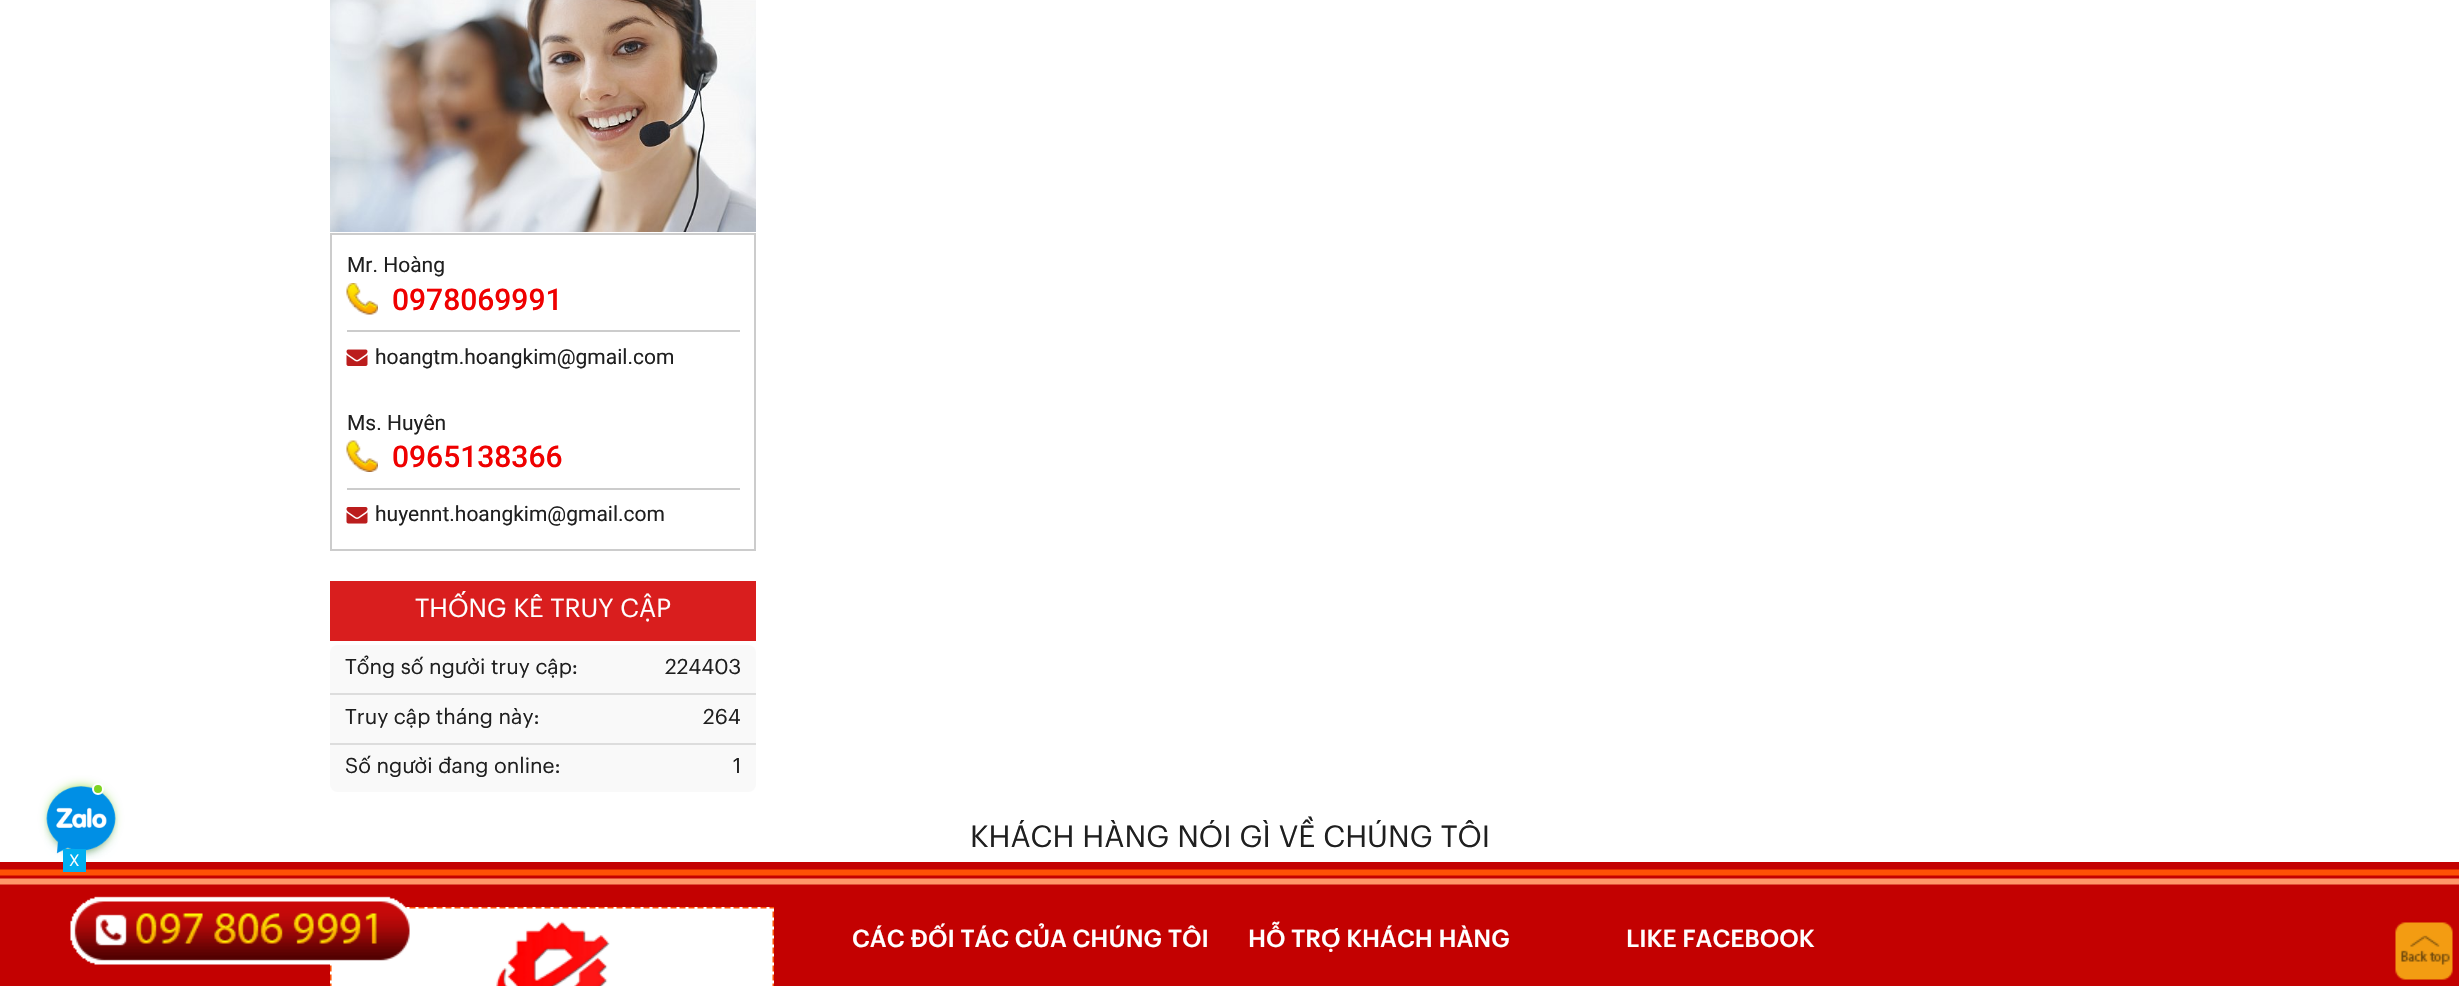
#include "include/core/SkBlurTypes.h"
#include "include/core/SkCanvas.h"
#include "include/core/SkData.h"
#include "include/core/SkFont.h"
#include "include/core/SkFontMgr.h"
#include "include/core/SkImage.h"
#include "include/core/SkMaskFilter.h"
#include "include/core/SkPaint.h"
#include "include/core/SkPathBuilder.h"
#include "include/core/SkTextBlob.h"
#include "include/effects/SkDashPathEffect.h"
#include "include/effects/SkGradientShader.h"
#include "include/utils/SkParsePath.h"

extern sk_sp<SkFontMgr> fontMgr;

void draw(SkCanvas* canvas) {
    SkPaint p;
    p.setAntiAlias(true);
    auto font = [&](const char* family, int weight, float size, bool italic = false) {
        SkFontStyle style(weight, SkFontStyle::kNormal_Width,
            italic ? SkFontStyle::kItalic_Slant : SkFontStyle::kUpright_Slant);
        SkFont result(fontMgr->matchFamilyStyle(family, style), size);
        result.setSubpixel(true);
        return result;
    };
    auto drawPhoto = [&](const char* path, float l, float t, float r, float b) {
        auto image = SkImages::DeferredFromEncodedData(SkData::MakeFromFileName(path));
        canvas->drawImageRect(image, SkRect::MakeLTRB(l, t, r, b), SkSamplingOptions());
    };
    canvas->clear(0xFFFFFFFF);
    drawPhoto("media/1.png", 330, 0, 756, 232);
    p.setStyle(SkPaint::kStroke_Style);
    p.setStrokeWidth(2);
    p.setColor(0xFFCCCCCC);
    canvas->drawRect(SkRect::MakeLTRB(331, 234, 755, 550), p);
    p.setStyle(SkPaint::kFill_Style);
    canvas->drawRect(SkRect::MakeLTRB(347, 330, 740, 332), p);
    auto font1 = font("Roboto", 400, 21);
    p.setColor(0xFF1F1F1F);
    canvas->drawString("Mr. Hoàng", 347, 272, font1, p);
    drawPhoto("media/2.png", 346, 283, 378, 315);
    auto font2 = font("Roboto", 500, 30);
    p.setColor(0xFFEF0000);
    canvas->drawString("0978069991", 392, 310, font2, p);
    drawPhoto("media/3.png", 346, 349, 368, 366);
    p.setColor(0xFF1F1F1F);
    canvas->drawString("hoangtm.hoangkim@gmail.com", 375, 364, font1, p);
    p.setColor(0xFFCCCCCC);
    canvas->drawRect(SkRect::MakeLTRB(347, 488, 740, 490), p);
    p.setColor(0xFF1F1F1F);
    canvas->drawString("Ms. Huyên", 347, 430, font1, p);
    drawPhoto("media/4.png", 346, 440, 378, 472);
    p.setColor(0xFFEF0000);
    canvas->drawString("0965138366", 392, 467, font2, p);
    drawPhoto("media/5.png", 346, 507, 368, 524);
    p.setColor(0xFF1F1F1F);
    canvas->drawString("huyennt.hoangkim@gmail.com", 375, 521, font1, p);
    p.setColor(0xFFD91E1E);
    canvas->drawRect(SkRect::MakeLTRB(330, 581, 756, 641), p);
    auto font3 = font("Graphik", 400, 25.5f);
    p.setColor(0xFFFFFFFF);
    canvas->drawString("THỐNG KÊ TRUY CẬP", 415, 617, font3, p);
    p.setColor(0xFFF9F9F9);
    canvas->drawRoundRect(SkRect::MakeLTRB(330, 645, 756, 792), 8, 8, p);
    p.setColor(0xFFDDDDDD);
    canvas->drawRect(SkRect::MakeLTRB(330, 693, 756, 695), p);
    auto font4 = font("Graphik", 400, 21);
    p.setColor(0xFF1F1F1F);
    canvas->drawString("Tổng số người truy cập:", 345, 674, font4, p);
    canvas->drawString("224403", 665, 674, font4, p);
    p.setColor(0xFFDDDDDD);
    canvas->drawRect(SkRect::MakeLTRB(330, 743, 756, 745), p);
    p.setColor(0xFF1F1F1F);
    {
        const struct { const char* s; float x, y; } items[] = {
            {"Truy cập tháng này:", 345, 724},
            {"264", 703, 724},
            {"Số người đang online:", 345, 773},
            {"1", 733, 773},
        };
        for (auto [s, x, y] : items) {
            canvas->drawString(s, x, y, font4, p);
        }
    }
    auto font5 = font("Graphik", 400, 30);
    canvas->drawString("KHÁCH HÀNG NÓI GÌ VỀ CHÚNG TÔI", 970, 847, font5, p);
    p.setColor(0xFFC30101);
    canvas->drawRect(SkRect::MakeLTRB(0, 884, 2459, 986), p);
    drawPhoto("media/8.png", 0, 862, 2459, 885);
    p.setColor(0xFF7ED321);
    p.setMaskFilter(SkMaskFilter::MakeBlur(kNormal_SkBlurStyle, 6));
    canvas->drawRoundRect(SkRect::MakeLTRB(51, 788, 111, 848), 30, 30, p);
    p.setMaskFilter(nullptr);
    drawPhoto("media/10.png", 44, 786, 118, 859);
    p.setColor(0xFF01AEF0);
    canvas->drawRect(SkRect::MakeLTRB(63, 849, 86, 872), p);
    auto font6 = font("Graphik", 400, 16);
    p.setColor(0xFFFFFFFF);
    canvas->drawString("X", 69, 866, font6, p);
    drawPhoto("media/7.png", 330, 907, 774, 986);
    drawPhoto("media/6.png", 70, 896, 410, 965);
    auto font7 = font("Graphik", 500, 24);
    {
        const struct { const char* s; float x, y; } items[] = {
            {"CÁC ĐỐI TÁC CỦA CHÚNG TÔI", 852, 947},
            {"HỖ TRỢ KHÁCH HÀNG", 1248, 947},
            {"LIKE FACEBOOK", 1626, 947},
        };
        for (auto [s, x, y] : items) {
            canvas->drawString(s, x, y, font7, p);
        }
    }
    drawPhoto("media/9.png", 2395, 922, 2453, 980);
    p.setColor(0xFF7ED321);
    canvas->drawCircle(98, 789, 5, p);
    p.setStyle(SkPaint::kStroke_Style);
    p.setColor(0xFFFFFFFF);
    canvas->drawCircle(98, 789, 5, p);
}
